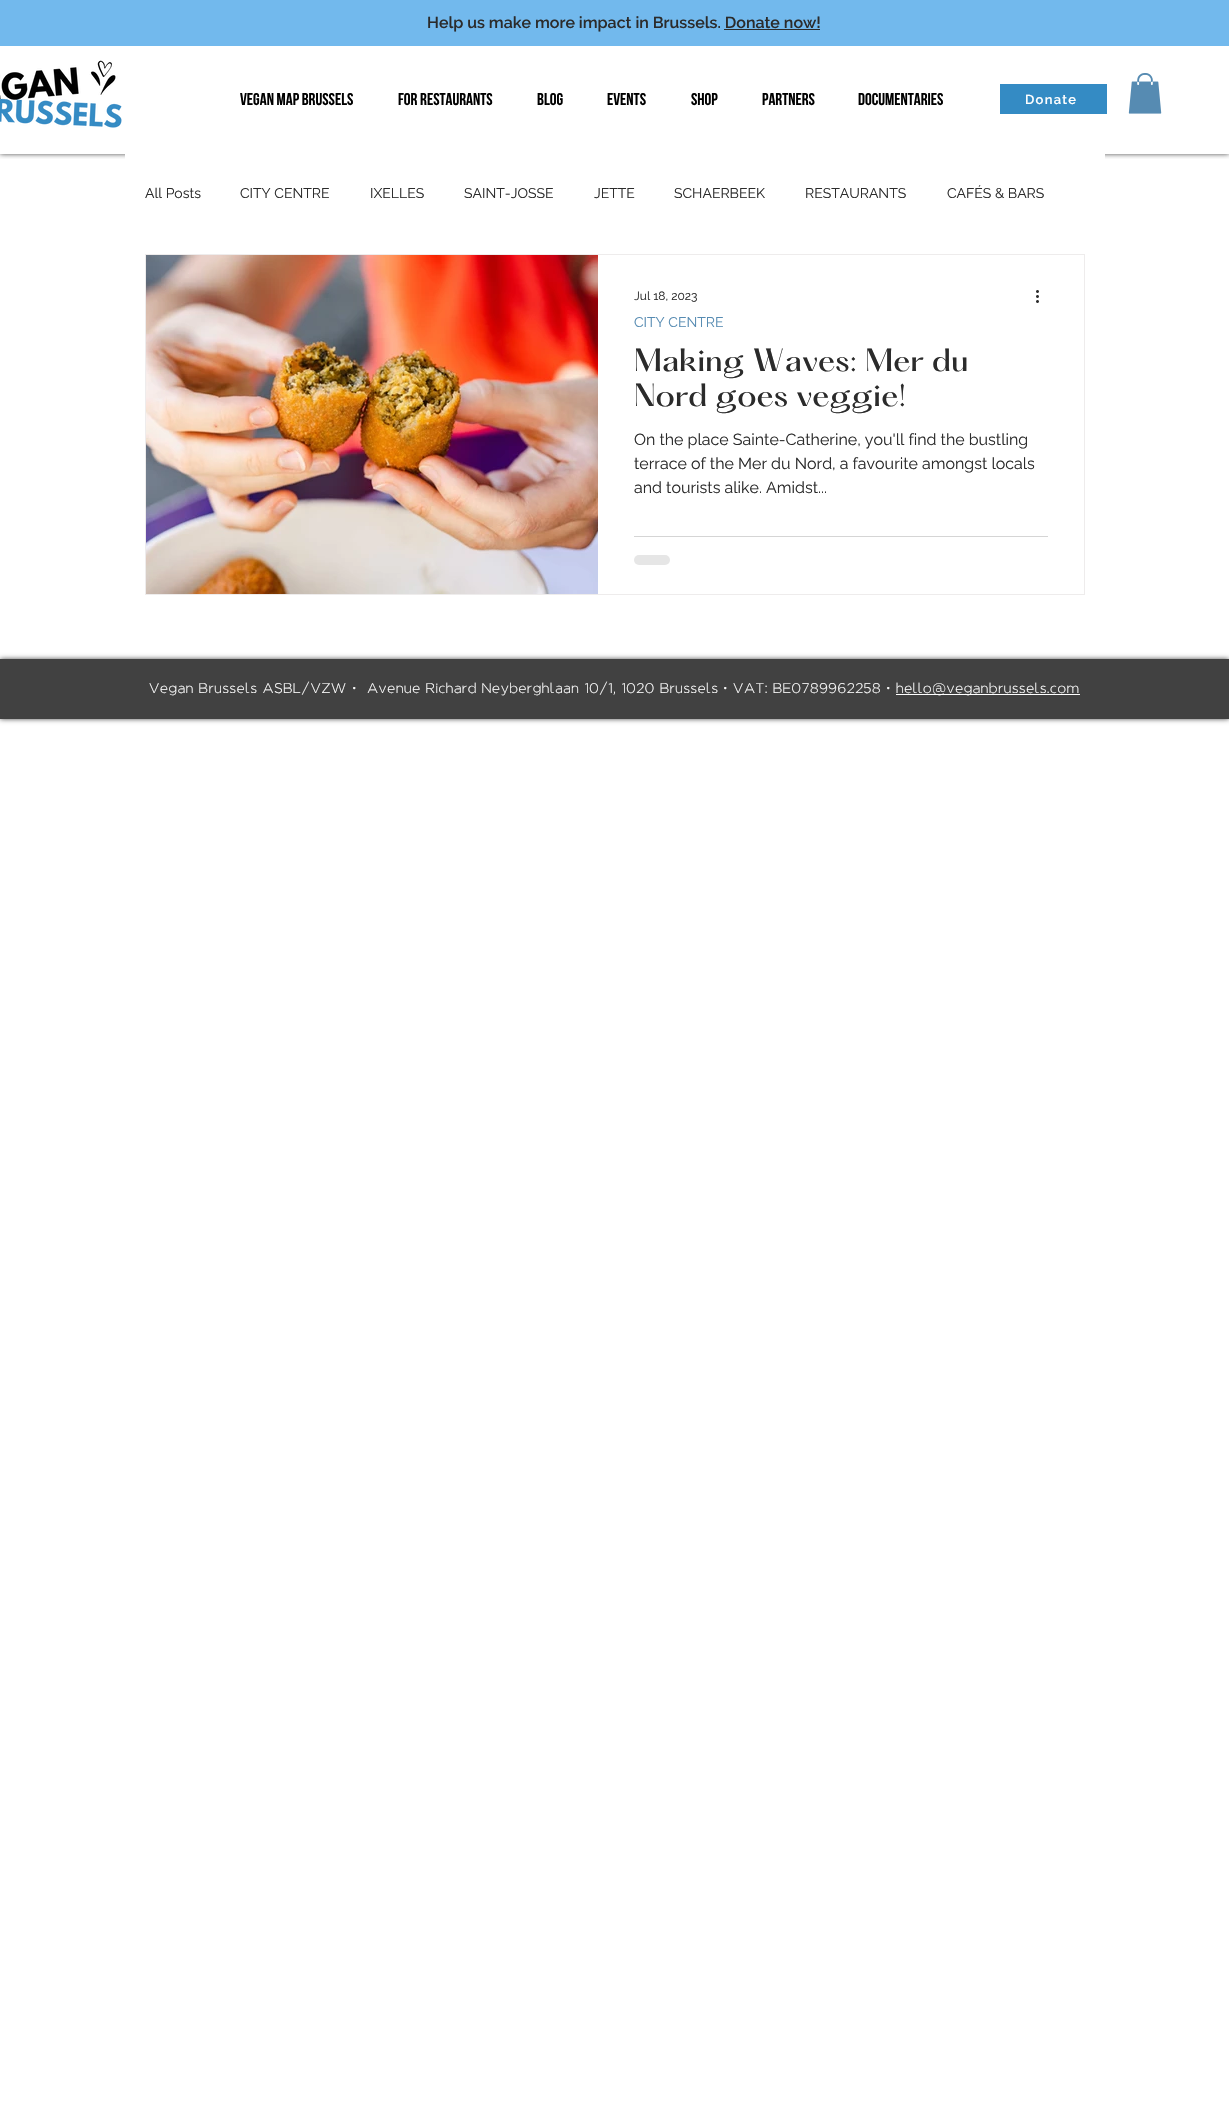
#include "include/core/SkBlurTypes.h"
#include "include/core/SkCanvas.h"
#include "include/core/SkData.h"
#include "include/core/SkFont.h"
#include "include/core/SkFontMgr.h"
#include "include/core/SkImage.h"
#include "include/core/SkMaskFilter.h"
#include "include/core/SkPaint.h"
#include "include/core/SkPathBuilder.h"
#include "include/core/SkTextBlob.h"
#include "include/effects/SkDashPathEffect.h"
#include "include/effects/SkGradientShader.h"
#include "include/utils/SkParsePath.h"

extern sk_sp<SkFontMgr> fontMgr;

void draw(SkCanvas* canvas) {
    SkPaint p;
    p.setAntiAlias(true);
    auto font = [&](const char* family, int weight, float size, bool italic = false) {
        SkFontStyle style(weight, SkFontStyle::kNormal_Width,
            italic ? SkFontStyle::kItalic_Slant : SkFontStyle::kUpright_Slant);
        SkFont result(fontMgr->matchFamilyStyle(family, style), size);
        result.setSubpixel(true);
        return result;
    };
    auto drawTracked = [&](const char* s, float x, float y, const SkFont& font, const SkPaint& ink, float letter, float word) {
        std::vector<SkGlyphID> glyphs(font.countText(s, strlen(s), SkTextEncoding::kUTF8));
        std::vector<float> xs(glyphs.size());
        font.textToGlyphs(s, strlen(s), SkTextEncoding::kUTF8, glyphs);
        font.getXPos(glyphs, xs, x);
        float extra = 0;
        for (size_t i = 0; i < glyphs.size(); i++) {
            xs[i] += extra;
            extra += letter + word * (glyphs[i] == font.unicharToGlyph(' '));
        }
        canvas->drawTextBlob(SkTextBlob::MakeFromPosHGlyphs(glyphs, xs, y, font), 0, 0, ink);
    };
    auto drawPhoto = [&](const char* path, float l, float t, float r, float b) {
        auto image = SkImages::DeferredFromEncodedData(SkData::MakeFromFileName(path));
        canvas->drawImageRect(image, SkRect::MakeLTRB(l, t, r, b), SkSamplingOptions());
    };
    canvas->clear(0xFFFFFFFF);
    canvas->save();
    canvas->clipRect(SkRect::MakeLTRB(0, 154, 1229, 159));
    p.setColor(0xB3000000);
    p.setMaskFilter(SkMaskFilter::MakeBlur(kNormal_SkBlurStyle, 2.5f));
    canvas->drawRect(SkRect::MakeLTRB(0, 0, 1229, 154), p);
    p.setMaskFilter(nullptr);
    canvas->restore();
    p.setColor(0xFF72B9ED);
    canvas->drawRect(SkRect::MakeLTRB(0, 0, 1229, 46), p);
    auto font1 = font("Raleway", 600, 16);
    p.setColor(0xFF2B2B2B);
    canvas->drawString("Help us make more impact in Brussels. Donate now!", 427, 28, font1, p);
    canvas->drawRect(SkRect::MakeLTRB(724, 29, 820, 30), p);
    drawPhoto("media/1.png", 0, 60, 122, 128);
    auto font2 = font("Bebas Neue", 400, 17);
    p.setColor(0xFF000000);
    {
        const struct { const char* s; float x, y; } items[] = {
            {"Vegan Map Brussels", 240, 105},
            {"For Restaurants", 398, 105},
            {"Blog", 537, 105},
            {"Events", 607, 105},
            {"Shop", 691, 105},
            {"Partners", 762, 105},
            {"Documentaries", 858, 105},
        };
        for (auto [s, x, y] : items) {
            canvas->drawString(s, x, y, font2, p);
        }
    }
    p.setColor(0xFF348BC4);
    canvas->drawRect(SkRect::MakeLTRB(1000, 84, 1107, 114), p);
    auto font3 = font("Raleway", 600, 13);
    p.setColor(0xFFFFFFFF);
    drawTracked("Donate", 1025, 104, font3, p, 1.25f, 0);
    drawPhoto("media/2.png", 1128, 73, 1162, 114);
    canvas->drawRect(SkRect::MakeLTRB(125, 154, 1105, 159), p);
    auto font4 = font("Raleway", 400, 14);
    p.setColor(0xFF2B2B2B);
    {
        const struct { const char* s; float x, y; } items[] = {
            {"All Posts", 145, 198},
            {"CITY CENTRE", 240, 198},
            {"IXELLES", 370, 198},
            {"SAINT-JOSSE", 464, 198},
            {"JETTE", 594, 198},
            {"SCHAERBEEK", 674, 198},
            {"RESTAURANTS", 805, 198},
            {"CAFÉS & BARS", 947, 198},
        };
        for (auto [s, x, y] : items) {
            canvas->drawString(s, x, y, font4, p);
        }
    }
    p.setStyle(SkPaint::kStroke_Style);
    p.setStrokeWidth(1);
    p.setColor(0xFFEEECEC);
    canvas->drawRect(SkRect::MakeLTRB(145.5f, 254.5f, 1084.5f, 594.5f), p);
    drawPhoto("media/3.png", 146, 255, 598, 594);
    auto font5 = font("Raleway", 400, 12);
    p.setStyle(SkPaint::kFill_Style);
    p.setColor(0xFF2B2B2B);
    canvas->drawString("Jul 18, 2023", 634, 300, font5, p);
    drawPhoto("media/4.png", 1036, 290, 1039, 303);
    p.setColor(0xFF568BB2);
    canvas->drawString("CITY CENTRE", 634, 327, font4, p);
    auto font6 = font("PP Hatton", 500, 28);
    p.setColor(0xFF2B2B2B);
    canvas->drawString("Making Waves: Mer du", 634, 371, font6, p);
    canvas->drawString("Nord goes veggie!", 634, 406, font6, p);
    auto font7 = font("Raleway", 400, 16);
    {
        const struct { const char* s; float x, y; } items[] = {
            {"On the place Sainte-Catherine, you'll find the bustling", 634, 445},
            {"terrace of the Mer du Nord, a favourite amongst locals", 634, 469},
            {"and tourists alike. Amidst...", 634, 493},
        };
        for (auto [s, x, y] : items) {
            canvas->drawString(s, x, y, font7, p);
        }
    }
    p.setColor(0xFFD5D5D5);
    canvas->drawRect(SkRect::MakeLTRB(634, 536, 1048, 537), p);
    p.setColor(0xFFE6E6E6);
    canvas->drawRoundRect(SkRect::MakeLTRB(634, 555, 670, 565), 5, 5, p);
    p.setColor(0xB3000000);
    p.setMaskFilter(SkMaskFilter::MakeBlur(kNormal_SkBlurStyle, 2.5f));
    canvas->drawRect(SkRect::MakeLTRB(0, 659, 1229, 719), p);
    p.setMaskFilter(nullptr);
    p.setColor(0xFF414141);
    canvas->drawRect(SkRect::MakeLTRB(0, 659, 1229, 719), p);
    auto font8 = font("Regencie", 300, 14);
    p.setColor(0xFFFFFFFF);
    drawTracked("Vegan Brussels ASBL/VZW", 149, 693, font8, p, 0.7f, 0);
    auto font9 = font("WenQuanYi Zen Hei", 500, 14);
    drawTracked("・", 347, 693, font9, p, 0.7f, 0);
    drawTracked("Avenue Richard Neyberghlaan 10/1, 1020 Brussels", 367, 693, font8, p, 0.7f, 0);
    drawTracked("・", 718, 693, font9, p, 0.7f, 0);
    drawTracked("VAT: BE0789962258", 733, 693, font8, p, 0.7f, 0);
    drawTracked("・", 881, 693, font9, p, 0.7f, 0);
    canvas->drawRect(SkRect::MakeLTRB(896, 694, 1080, 695), p);
    drawTracked("hello@veganbrussels.com", 896, 693, font8, p, 0.7f, 0);
}
